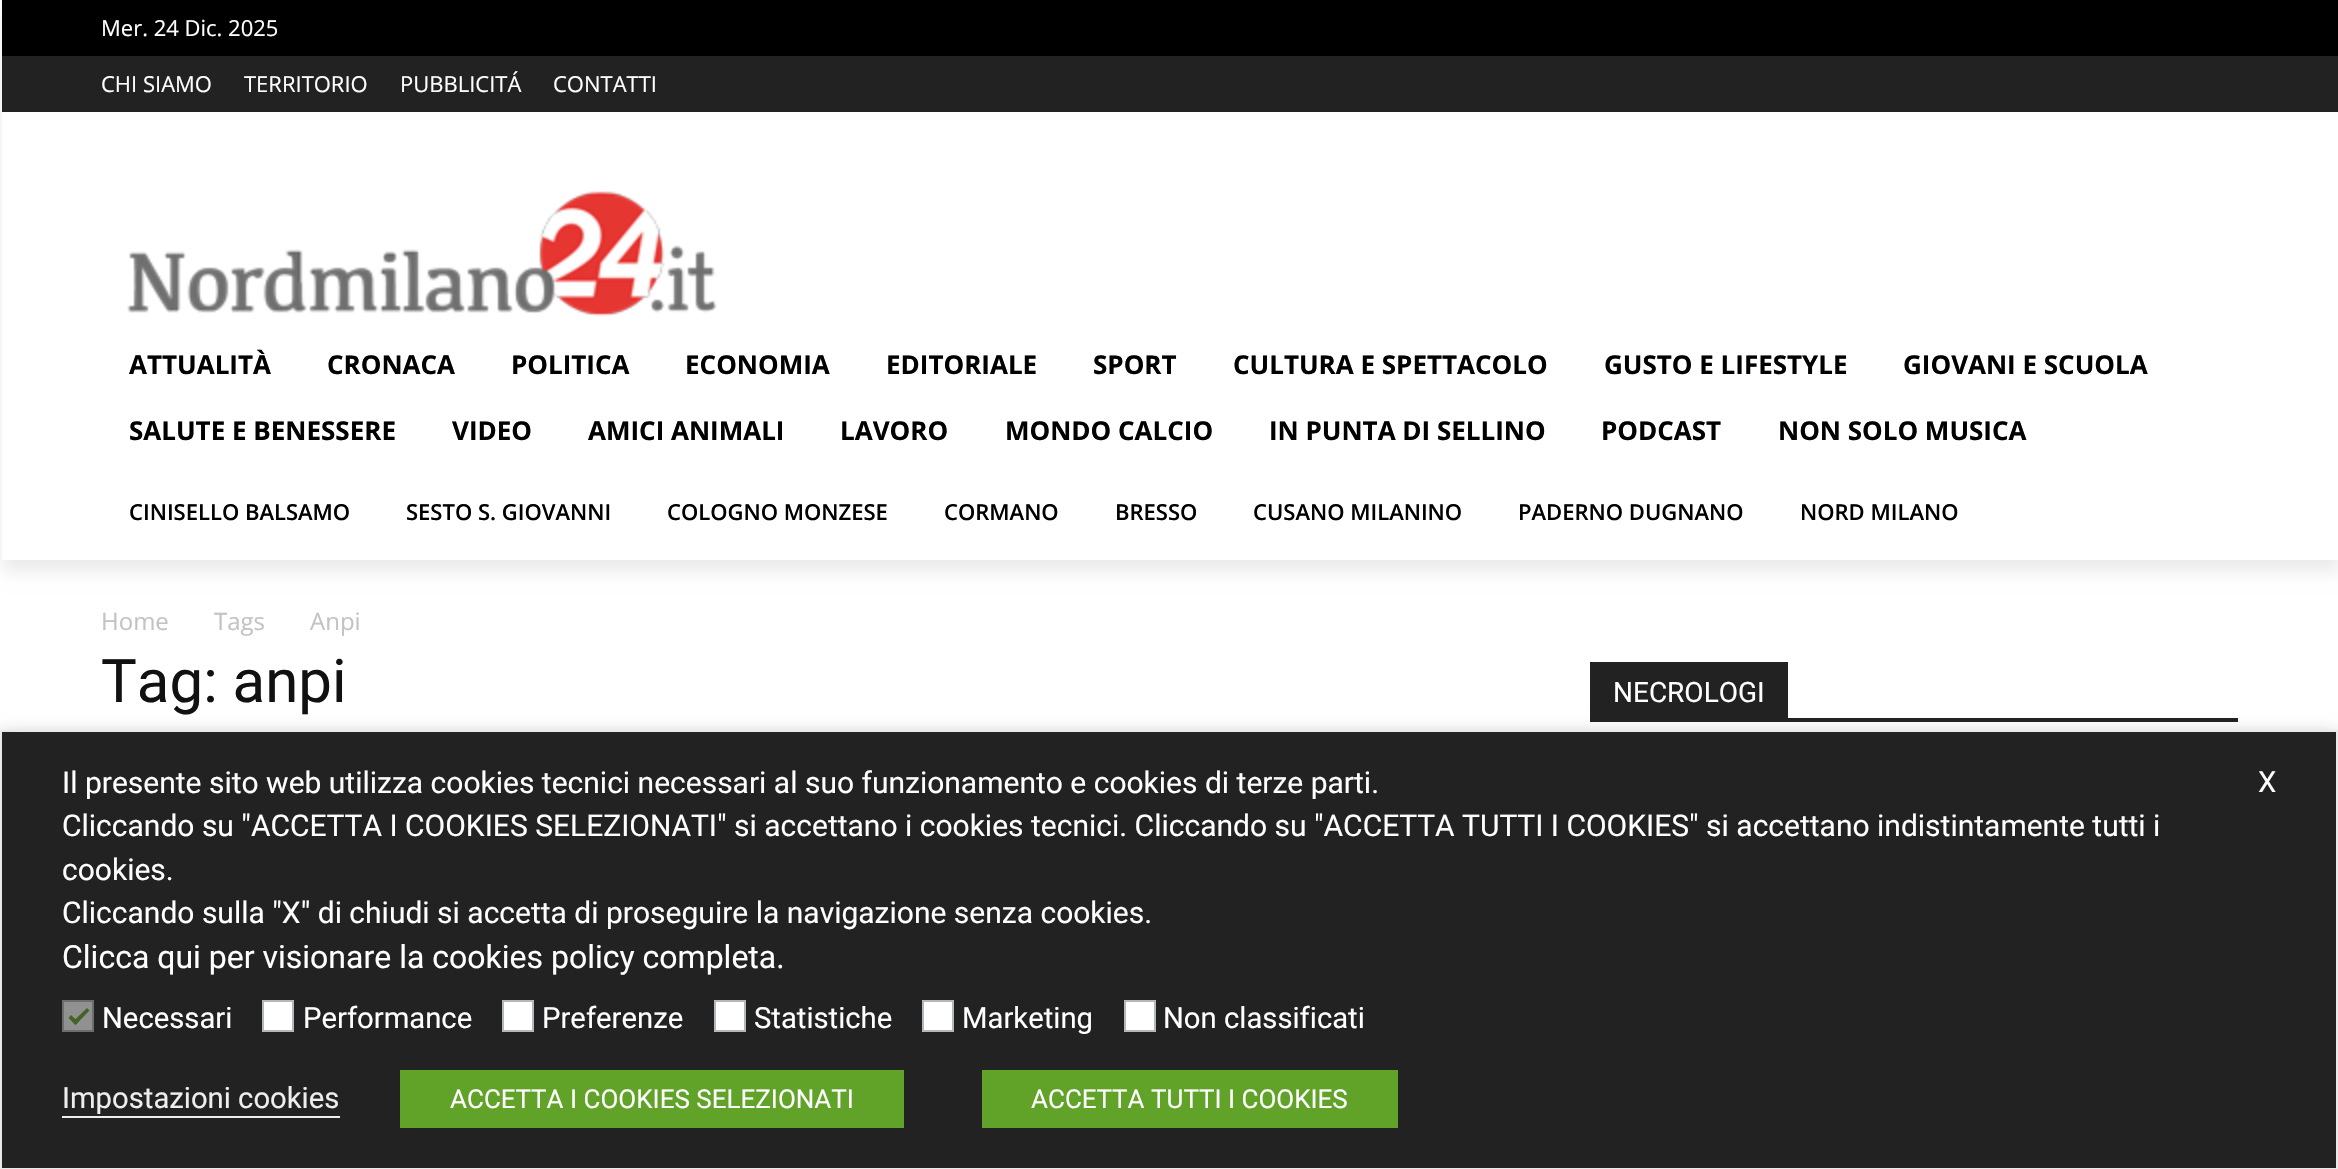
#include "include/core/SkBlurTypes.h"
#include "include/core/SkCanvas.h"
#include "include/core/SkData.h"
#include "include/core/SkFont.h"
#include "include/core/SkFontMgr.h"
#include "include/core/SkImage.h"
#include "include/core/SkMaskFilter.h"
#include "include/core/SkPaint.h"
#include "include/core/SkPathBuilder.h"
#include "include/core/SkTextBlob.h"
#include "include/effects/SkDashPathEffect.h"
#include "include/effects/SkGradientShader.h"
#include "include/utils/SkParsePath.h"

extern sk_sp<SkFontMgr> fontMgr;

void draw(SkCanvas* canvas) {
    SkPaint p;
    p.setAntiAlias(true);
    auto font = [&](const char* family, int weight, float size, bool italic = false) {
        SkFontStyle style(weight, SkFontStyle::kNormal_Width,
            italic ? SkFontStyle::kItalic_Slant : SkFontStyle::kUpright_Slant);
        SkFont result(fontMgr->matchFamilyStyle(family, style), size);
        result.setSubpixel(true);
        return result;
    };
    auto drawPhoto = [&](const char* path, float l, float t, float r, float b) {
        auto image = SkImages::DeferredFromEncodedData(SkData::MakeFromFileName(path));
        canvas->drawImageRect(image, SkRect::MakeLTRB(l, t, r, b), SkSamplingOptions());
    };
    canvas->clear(0xFFFFFFFF);
    p.setColor(0xFF000000);
    canvas->drawRect(SkRect::MakeLTRB(2, 0, 2338, 56), p);
    p.setColor(0xFF222222);
    canvas->drawRect(SkRect::MakeLTRB(2, 56, 2338, 112), p);
    drawPhoto("media/1.png", 127, 191, 717, 317);
    canvas->save();
    canvas->clipPath(SkPathBuilder(SkPathFillType::kEvenOdd).moveTo(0, 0).lineTo(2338, 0).lineTo(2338, 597).lineTo(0, 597).close().moveTo(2, 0).lineTo(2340, 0).lineTo(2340, 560).lineTo(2, 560).close().detach(), true);
    p.setColor(0x14000000);
    p.setMaskFilter(SkMaskFilter::MakeBlur(kNormal_SkBlurStyle, 8));
    canvas->drawRect(SkRect::MakeLTRB(2, 12, 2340, 572), p);
    p.setMaskFilter(nullptr);
    canvas->restore();
    auto font1 = font("Open Sans", 400, 22);
    p.setColor(0xFFFFFFFF);
    {
        const struct { const char* s; float x, y; } items[] = {
            {"Mer. 24 Dic. 2025", 101, 36},
            {"CHI SIAMO", 101, 92},
            {"TERRITORIO", 244, 92},
            {"PUBBLICITÁ", 400, 92},
            {"CONTATTI", 553, 92},
        };
        for (auto [s, x, y] : items) {
            canvas->drawString(s, x, y, font1, p);
        }
    }
    auto font2 = font("Open Sans", 700, 26);
    p.setColor(0xFF000000);
    {
        const struct { const char* s; float x, y; } items[] = {
            {"ATTUALITÀ", 129, 374},
            {"CRONACA", 327, 374},
            {"POLITICA", 511, 374},
            {"ECONOMIA", 685, 374},
            {"EDITORIALE", 886, 374},
            {"SPORT", 1093, 374},
            {"CULTURA E SPETTACOLO", 1233, 374},
            {"GUSTO E LIFESTYLE", 1604, 374},
            {"GIOVANI E SCUOLA", 1903, 374},
            {"SALUTE E BENESSERE", 129, 440},
            {"VIDEO", 452, 440},
            {"AMICI ANIMALI", 588, 440},
            {"LAVORO", 840, 440},
            {"MONDO CALCIO", 1005, 440},
            {"IN PUNTA DI SELLINO", 1269, 440},
            {"PODCAST", 1601, 440},
            {"NON SOLO MUSICA", 1778, 440},
        };
        for (auto [s, x, y] : items) {
            canvas->drawString(s, x, y, font2, p);
        }
    }
    auto font3 = font("Open Sans", 600, 22);
    {
        const struct { const char* s; float x, y; } items[] = {
            {"CINISELLO BALSAMO", 129, 520},
            {"SESTO S. GIOVANNI", 406, 520},
            {"COLOGNO MONZESE", 667, 520},
            {"CORMANO", 944, 520},
            {"BRESSO", 1115, 520},
            {"CUSANO MILANINO", 1253, 520},
            {"PADERNO DUGNANO", 1518, 520},
            {"NORD MILANO", 1800, 520},
        };
        for (auto [s, x, y] : items) {
            canvas->drawString(s, x, y, font3, p);
        }
    }
    auto font4 = font("Open Sans", 400, 24);
    p.setColor(0xFFC3C3C3);
    {
        const struct { const char* s; float x, y; } items[] = {
            {"Home", 101, 630},
            {"Tags", 214, 630},
            {"Anpi", 310, 630},
        };
        for (auto [s, x, y] : items) {
            canvas->drawString(s, x, y, font4, p);
        }
    }
    auto font5 = font("Roboto", 400, 60);
    p.setColor(0xFF111111);
    canvas->drawString("Tag: anpi", 101, 702, font5, p);
    p.setColor(0xFF222222);
    canvas->drawRect(SkRect::MakeLTRB(1590, 718, 2238, 722), p);
    canvas->drawRect(SkRect::MakeLTRB(1590, 662, 1788, 718), p);
    auto font6 = font("Roboto", 400, 28);
    p.setColor(0xFFFFFFFF);
    canvas->drawString("NECROLOGI", 1613, 702, font6, p);
    p.setColor(0x80000000);
    p.setMaskFilter(SkMaskFilter::MakeBlur(kNormal_SkBlurStyle, 10));
    canvas->drawRect(SkRect::MakeLTRB(0, 740, 2338, 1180), p);
    p.setMaskFilter(nullptr);
    p.setColor(0xFF222222);
    canvas->drawRect(SkRect::MakeLTRB(1, 731, 2337, 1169), p);
    p.setStyle(SkPaint::kStroke_Style);
    p.setStrokeWidth(2);
    p.setColor(0xFFE9E9E9);
    canvas->drawRect(SkRect::MakeLTRB(1, 731, 2337, 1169), p);
    auto font7 = font("Roboto", 400, 30);
    p.setStyle(SkPaint::kFill_Style);
    p.setColor(0xFFFFFFFF);
    {
        const struct { const char* s; float x, y; } items[] = {
            {"Il presente sito web utilizza cookies tecnici necessari al suo funzionamento e cookies di terze parti.", 62, 793},
            {"Cliccando su \"ACCETTA I COOKIES SELEZIONATI\" si accettano i cookies tecnici. Cliccando su \"ACCETTA TUTTI I COOKIES\" si accettano indistintamente tutti i", 62, 836},
            {"cookies.", 62, 880},
            {"Cliccando sulla \"X\" di chiudi si accetta di proseguire la navigazione senza cookies.", 62, 923},
        };
        for (auto [s, x, y] : items) {
            canvas->drawString(s, x, y, font7, p);
        }
    }
    auto font8 = font("Roboto", 400, 32);
    canvas->drawString("Clicca qui per visionare la cookies policy completa.", 62, 968, font8, p);
    p.setColor(0xFF919191);
    canvas->drawRect(SkRect::MakeLTRB(63, 1001, 93, 1031), p);
    p.setStyle(SkPaint::kStroke_Style);
    p.setColor(0xFF6B6E70);
    canvas->drawRect(SkRect::MakeLTRB(63, 1001, 93, 1031), p);
    p.setStyle(SkPaint::kFill_Style);
    p.setColor(0xFF426226);
    canvas->drawPath(SkPathBuilder().moveTo(87, 1008).lineTo(89.5f, 1010.5f).lineTo(75.5f, 1025).lineTo(72.5f, 1022).close().detach(), p);
    canvas->drawPath(SkPathBuilder().moveTo(71, 1015).lineTo(78.5f, 1022).lineTo(75.5f, 1025).lineTo(68.5f, 1018).close().detach(), p);
    auto font9 = font("Roboto", 400, 29.25f);
    p.setColor(0xFFFFFFFF);
    canvas->drawString("Necessari", 102, 1028, font9, p);
    canvas->drawRect(SkRect::MakeLTRB(263, 1001, 293, 1031), p);
    p.setStyle(SkPaint::kStroke_Style);
    p.setColor(0xFFB4B9BE);
    canvas->drawRect(SkRect::MakeLTRB(263, 1001, 293, 1031), p);
    p.setStyle(SkPaint::kFill_Style);
    p.setColor(0xFFFFFFFF);
    canvas->drawString("Performance", 303, 1028, font9, p);
    canvas->drawRect(SkRect::MakeLTRB(503, 1001, 533, 1031), p);
    p.setStyle(SkPaint::kStroke_Style);
    p.setColor(0xFFB4B9BE);
    canvas->drawRect(SkRect::MakeLTRB(503, 1001, 533, 1031), p);
    p.setStyle(SkPaint::kFill_Style);
    p.setColor(0xFFFFFFFF);
    canvas->drawString("Preferenze", 542, 1028, font9, p);
    canvas->drawRect(SkRect::MakeLTRB(715, 1001, 745, 1031), p);
    p.setStyle(SkPaint::kStroke_Style);
    p.setColor(0xFFB4B9BE);
    canvas->drawRect(SkRect::MakeLTRB(715, 1001, 745, 1031), p);
    p.setStyle(SkPaint::kFill_Style);
    p.setColor(0xFFFFFFFF);
    canvas->drawString("Statistiche", 754, 1028, font9, p);
    canvas->drawRect(SkRect::MakeLTRB(923, 1001, 953, 1031), p);
    p.setStyle(SkPaint::kStroke_Style);
    p.setColor(0xFFB4B9BE);
    canvas->drawRect(SkRect::MakeLTRB(923, 1001, 953, 1031), p);
    p.setStyle(SkPaint::kFill_Style);
    p.setColor(0xFFFFFFFF);
    canvas->drawString("Marketing", 962, 1028, font9, p);
    canvas->drawRect(SkRect::MakeLTRB(1125, 1001, 1155, 1031), p);
    p.setStyle(SkPaint::kStroke_Style);
    p.setColor(0xFFB4B9BE);
    canvas->drawRect(SkRect::MakeLTRB(1125, 1001, 1155, 1031), p);
    p.setStyle(SkPaint::kFill_Style);
    p.setColor(0xFFFFFFFF);
    canvas->drawString("Non classificati", 1163, 1028, font9, p);
    p.setColor(0xFFEEEEEE);
    canvas->drawString("Impostazioni cookies", 62, 1108, font9, p);
    canvas->drawRect(SkRect::MakeLTRB(62, 1116, 340, 1118), p);
    p.setColor(0xFF61A229);
    canvas->drawRect(SkRect::MakeLTRB(400, 1070, 904, 1128), p);
    auto font10 = font("Roboto", 400, 26);
    p.setColor(0xFFFFFFFF);
    canvas->drawString("ACCETTA I COOKIES SELEZIONATI", 450, 1108, font10, p);
    p.setColor(0xFF61A229);
    canvas->drawRect(SkRect::MakeLTRB(982, 1070, 1398, 1128), p);
    p.setColor(0xFFFFFFFF);
    canvas->drawString("ACCETTA TUTTI I COOKIES", 1031, 1108, font10, p);
    canvas->drawString("X", 2258, 792, font9, p);
}
